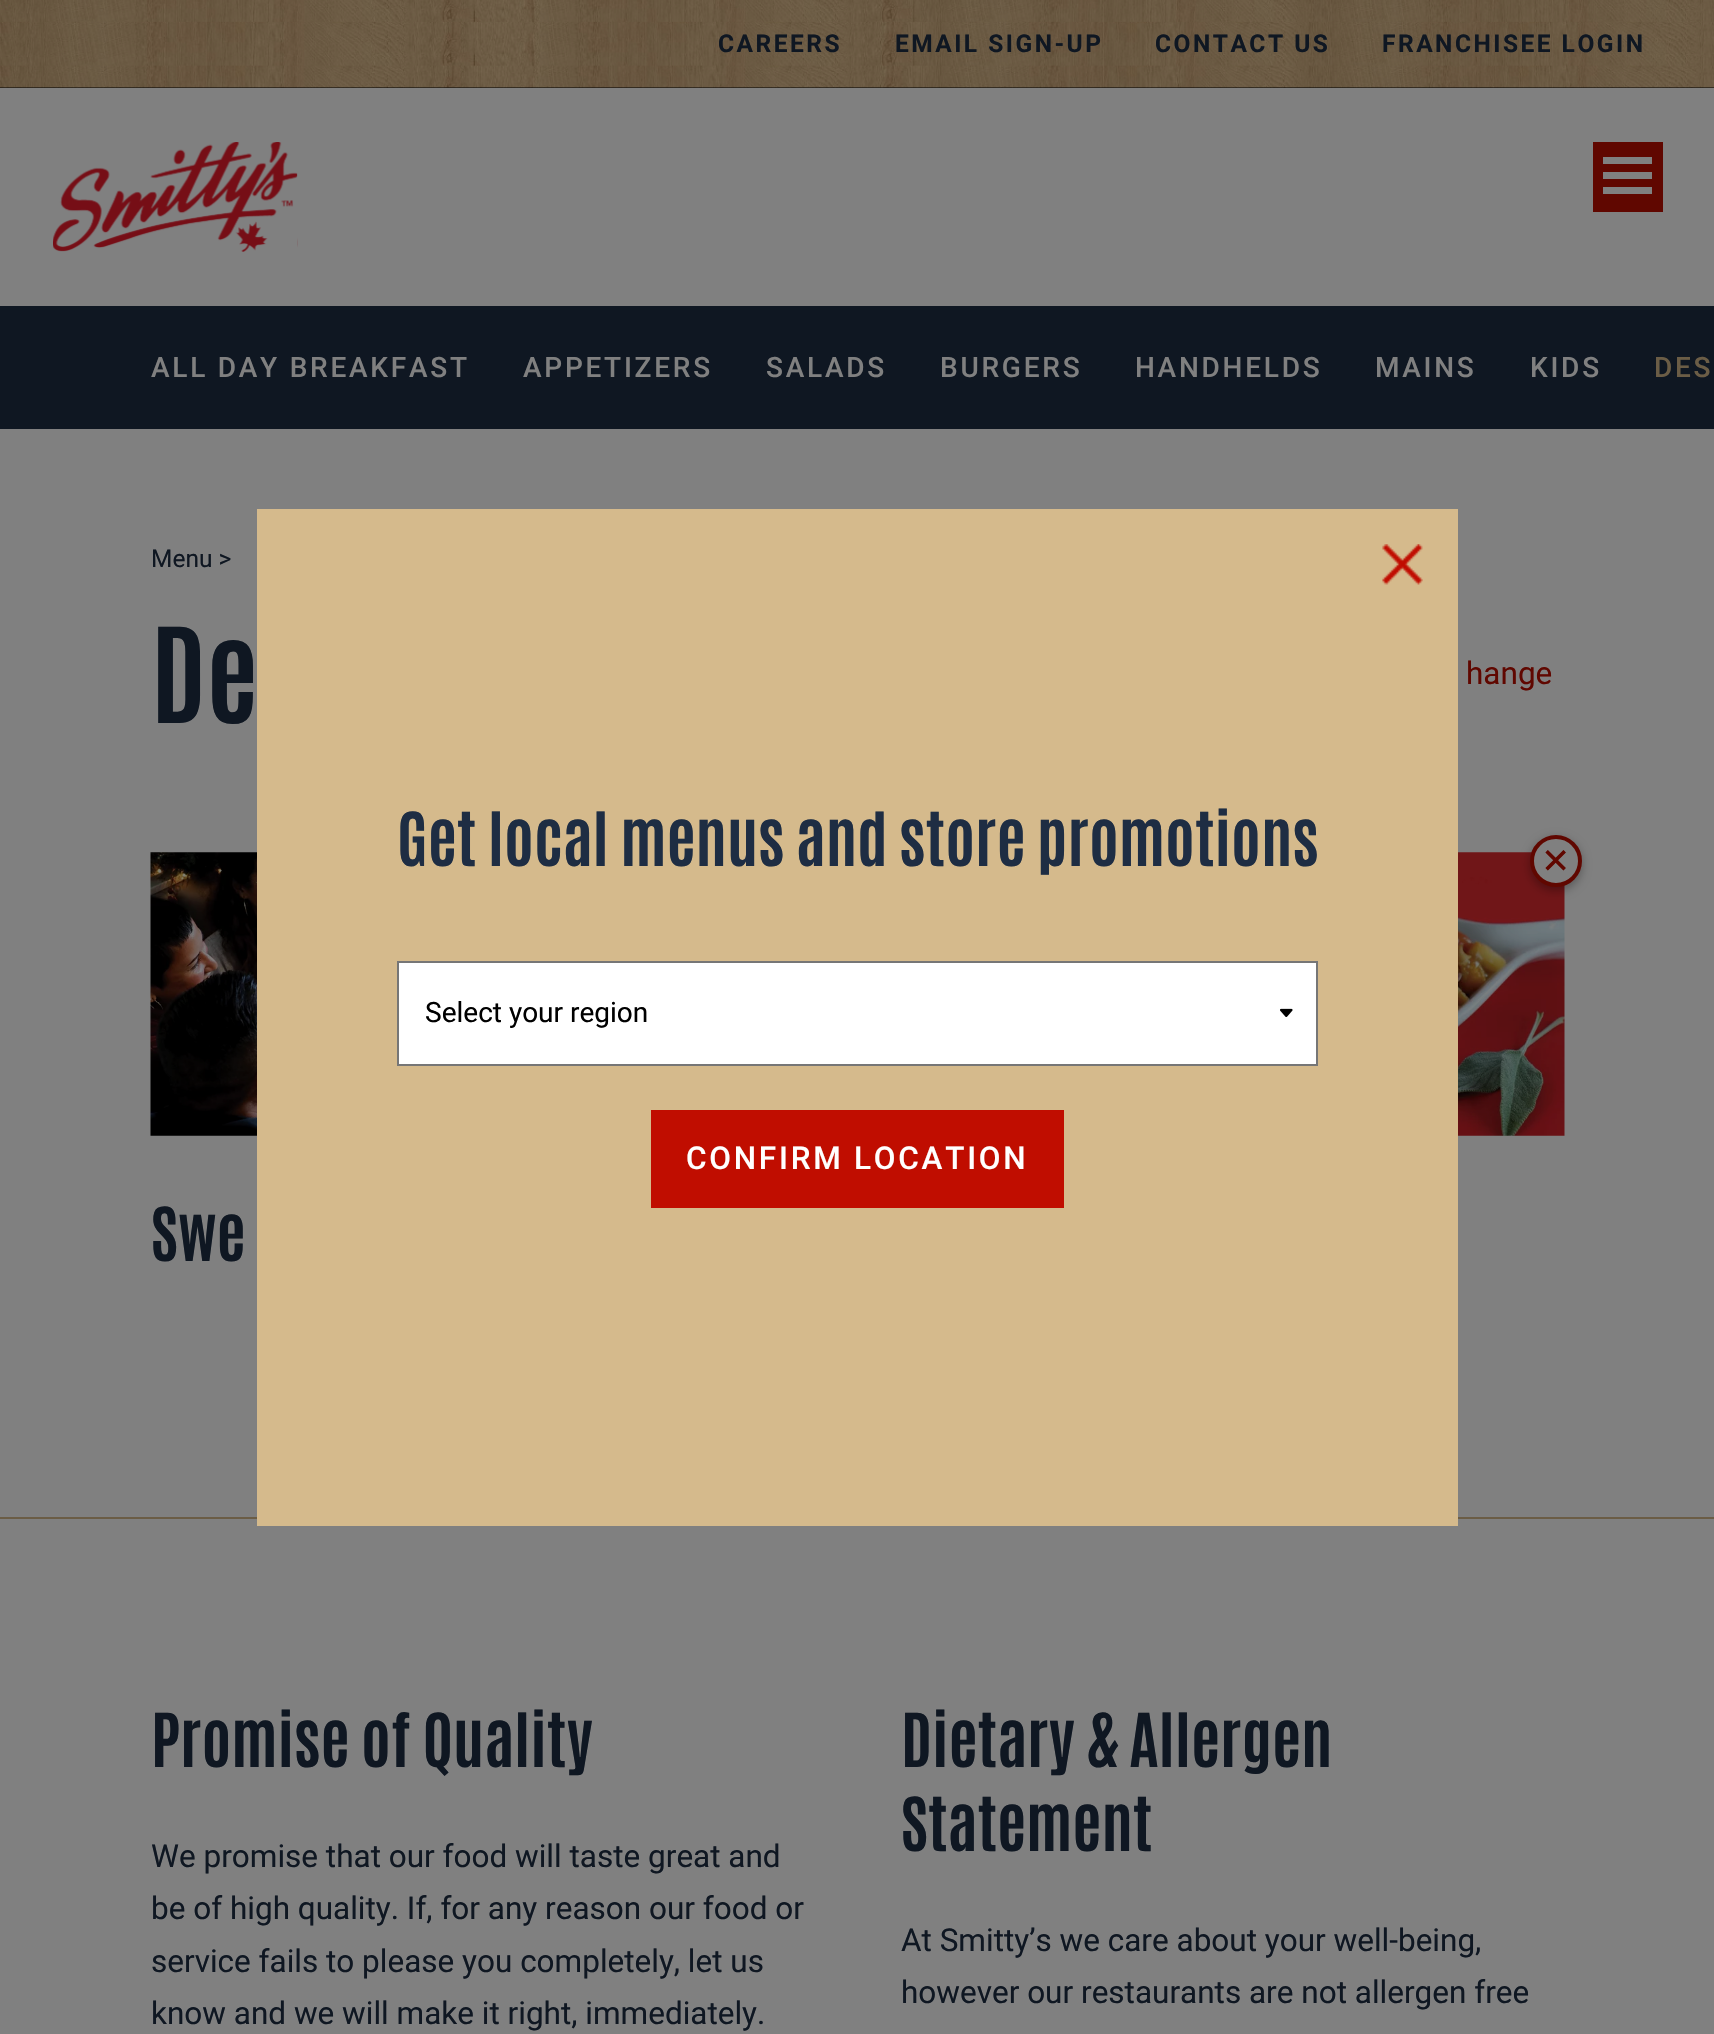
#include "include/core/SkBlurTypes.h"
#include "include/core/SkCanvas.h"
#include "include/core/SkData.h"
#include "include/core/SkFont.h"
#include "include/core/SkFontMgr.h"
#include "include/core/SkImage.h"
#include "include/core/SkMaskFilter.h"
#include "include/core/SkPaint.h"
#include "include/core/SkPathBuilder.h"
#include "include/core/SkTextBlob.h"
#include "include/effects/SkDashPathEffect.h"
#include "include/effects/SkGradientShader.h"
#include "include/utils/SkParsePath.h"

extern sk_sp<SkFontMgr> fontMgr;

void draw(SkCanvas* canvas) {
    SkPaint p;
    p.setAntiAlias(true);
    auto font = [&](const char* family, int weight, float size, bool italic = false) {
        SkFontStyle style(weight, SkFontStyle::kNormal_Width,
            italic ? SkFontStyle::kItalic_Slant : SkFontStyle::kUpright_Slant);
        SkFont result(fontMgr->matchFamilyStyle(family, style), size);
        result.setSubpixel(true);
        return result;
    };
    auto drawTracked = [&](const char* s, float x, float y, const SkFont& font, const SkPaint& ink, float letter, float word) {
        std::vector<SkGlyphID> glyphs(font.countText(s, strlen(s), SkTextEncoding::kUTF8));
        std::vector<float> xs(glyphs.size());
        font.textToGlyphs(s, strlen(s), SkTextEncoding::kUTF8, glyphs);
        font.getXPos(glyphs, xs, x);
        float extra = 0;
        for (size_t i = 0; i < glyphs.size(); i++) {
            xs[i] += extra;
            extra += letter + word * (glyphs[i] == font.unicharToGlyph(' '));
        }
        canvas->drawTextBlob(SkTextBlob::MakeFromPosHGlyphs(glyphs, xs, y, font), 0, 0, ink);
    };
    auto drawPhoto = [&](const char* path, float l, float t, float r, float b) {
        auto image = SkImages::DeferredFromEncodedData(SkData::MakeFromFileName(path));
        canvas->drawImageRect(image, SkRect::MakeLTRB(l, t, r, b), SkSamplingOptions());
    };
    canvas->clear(0xFF808080);
    p.setColor(0xFF000000);
    canvas->drawRect(SkRect::MakeLTRB(0, 87, 1714, 88), p);
    drawPhoto("media/1.png", 0, 0, 1714, 88);
    auto font1 = font("Roboto", 700, 24.5f);
    p.setColor(0xFF0F1722);
    {
        const struct { const char* s; float x, y; } items[] = {
            {"CAREERS", 718, 52},
            {"EMAIL SIGN-UP", 895, 52},
            {"CONTACT US", 1155, 52},
            {"FRANCHISEE LOGIN", 1382, 52},
        };
        for (auto [s, x, y] : items) {
            drawTracked(s, x, y, font1, p, 2.5f, 0);
        }
    }
    drawPhoto("media/2.png", 53, 142, 298, 252);
    p.setColor(0xFF600700);
    canvas->drawRect(SkRect::MakeLTRB(1593, 142, 1663, 212), p);
    p.setColor(0xFF808080);
    canvas->drawPath(SkPathBuilder().moveTo(1652, 164).lineTo(1652, 157).lineTo(1603, 157).lineTo(1603, 164).close().moveTo(1652, 179).lineTo(1652, 172).lineTo(1603, 172).lineTo(1603, 179).close().moveTo(1652, 194).lineTo(1652, 187).lineTo(1603, 187).lineTo(1603, 194).close().detach(), p);
    p.setColor(0xFF0F1722);
    canvas->drawRect(SkRect::MakeLTRB(0, 306, 1714, 429), p);
    auto font2 = font("Roboto", 500, 28);
    p.setColor(0xFF808080);
    {
        const struct { const char* s; float x, y; } items[] = {
            {"ALL DAY BREAKFAST", 151, 377},
            {"APPETIZERS", 523, 377},
            {"SALADS", 766, 377},
            {"BURGERS", 940, 377},
            {"HANDHELDS", 1135, 377},
            {"MAINS", 1375, 377},
            {"KIDS", 1530, 377},
        };
        for (auto [s, x, y] : items) {
            drawTracked(s, x, y, font2, p, 2.75f, 0);
        }
    }
    p.setColor(0xFF6B5D46);
    drawTracked("DES", 1654, 377, font2, p, 2.75f, 0);
    auto font3 = font("Roboto", 400, 24.5f);
    p.setColor(0xFF0F1722);
    canvas->drawString("Menu >", 151, 567, font3, p);
    auto font4 = font("Antonio", 700, 112);
    canvas->drawString("De", 151, 723, font4, p);
    auto font5 = font("Roboto", 400, 31.5f);
    p.setColor(0xFF600700);
    canvas->drawString("hange", 1466, 684, font5, p);
    drawPhoto("media/3.png", 150, 852, 1565, 1136);
    p.setColor(0x4D000000);
    p.setMaskFilter(SkMaskFilter::MakeBlur(kNormal_SkBlurStyle, 5));
    canvas->drawRoundRect(SkRect::MakeLTRB(1530, 838, 1582, 891), 26, 26, p);
    p.setMaskFilter(nullptr);
    p.setColor(0xFF808080);
    canvas->drawCircle(1556, 861, 24, p);
    p.setStyle(SkPaint::kStroke_Style);
    p.setStrokeWidth(4);
    p.setColor(0xFF600700);
    canvas->drawCircle(1556, 861, 24, p);
    auto font6 = font("DejaVu Sans", 400, 35);
    p.setStyle(SkPaint::kFill_Style);
    canvas->drawString("✕", 1541, 873, font6, p);
    auto font7 = font("Antonio", 700, 63);
    p.setColor(0xFF0F1722);
    canvas->drawString("Swe", 151, 1261, font7, p);
    p.setColor(0xFF6B5D46);
    canvas->drawRect(SkRect::MakeLTRB(0, 1517, 1714, 1519), p);
    p.setColor(0xFFD5BA8C);
    canvas->drawRect(SkRect::MakeLTRB(257, 509, 1458, 1526), p);
    drawPhoto("media/4.png", 1382, 544, 1423, 585);
    p.setColor(0xFF1E2D43);
    canvas->drawString("Get local menus and store promotions", 397, 866, font7, p);
    p.setColor(0xFFFFFFFF);
    canvas->drawRect(SkRect::MakeLTRB(399, 963, 1316, 1064), p);
    drawPhoto("media/5.png", 1280, 1008, 1293, 1017);
    p.setStyle(SkPaint::kStroke_Style);
    p.setStrokeWidth(2);
    p.setColor(0xFF767676);
    canvas->drawRect(SkRect::MakeLTRB(398, 962, 1317, 1065), p);
    auto font8 = font("Roboto", 400, 28);
    p.setStyle(SkPaint::kFill_Style);
    p.setColor(0xFF000000);
    canvas->drawString("Select your region", 425, 1022, font8, p);
    p.setColor(0xFFC00D00);
    canvas->drawRect(SkRect::MakeLTRB(651, 1110, 1064, 1208), p);
    auto font9 = font("Roboto", 500, 31.5f);
    p.setColor(0xFFFFFFFF);
    drawTracked("CONFIRM LOCATION", 686, 1169, font9, p, 2.75f, 0);
    p.setColor(0xFF0F1722);
    canvas->drawString("Promise of Quality", 151, 1767, font7, p);
    {
        const struct { const char* s; float x, y; } items[] = {
            {"We promise that our food will taste great and", 151, 1867},
            {"be of high quality. If, for any reason our food or", 151, 1919},
            {"service fails to please you completely, let us", 151, 1972},
            {"know and we will make it right, immediately.", 151, 2024},
        };
        for (auto [s, x, y] : items) {
            canvas->drawString(s, x, y, font5, p);
        }
    }
    canvas->drawString("Dietary & Allergen", 901, 1767, font7, p);
    canvas->drawString("Statement", 901, 1851, font7, p);
    canvas->drawString("At Smitty’s we care about your well-being,", 901, 1951, font5, p);
    canvas->drawString("however our restaurants are not allergen free", 901, 2003, font5, p);
}
